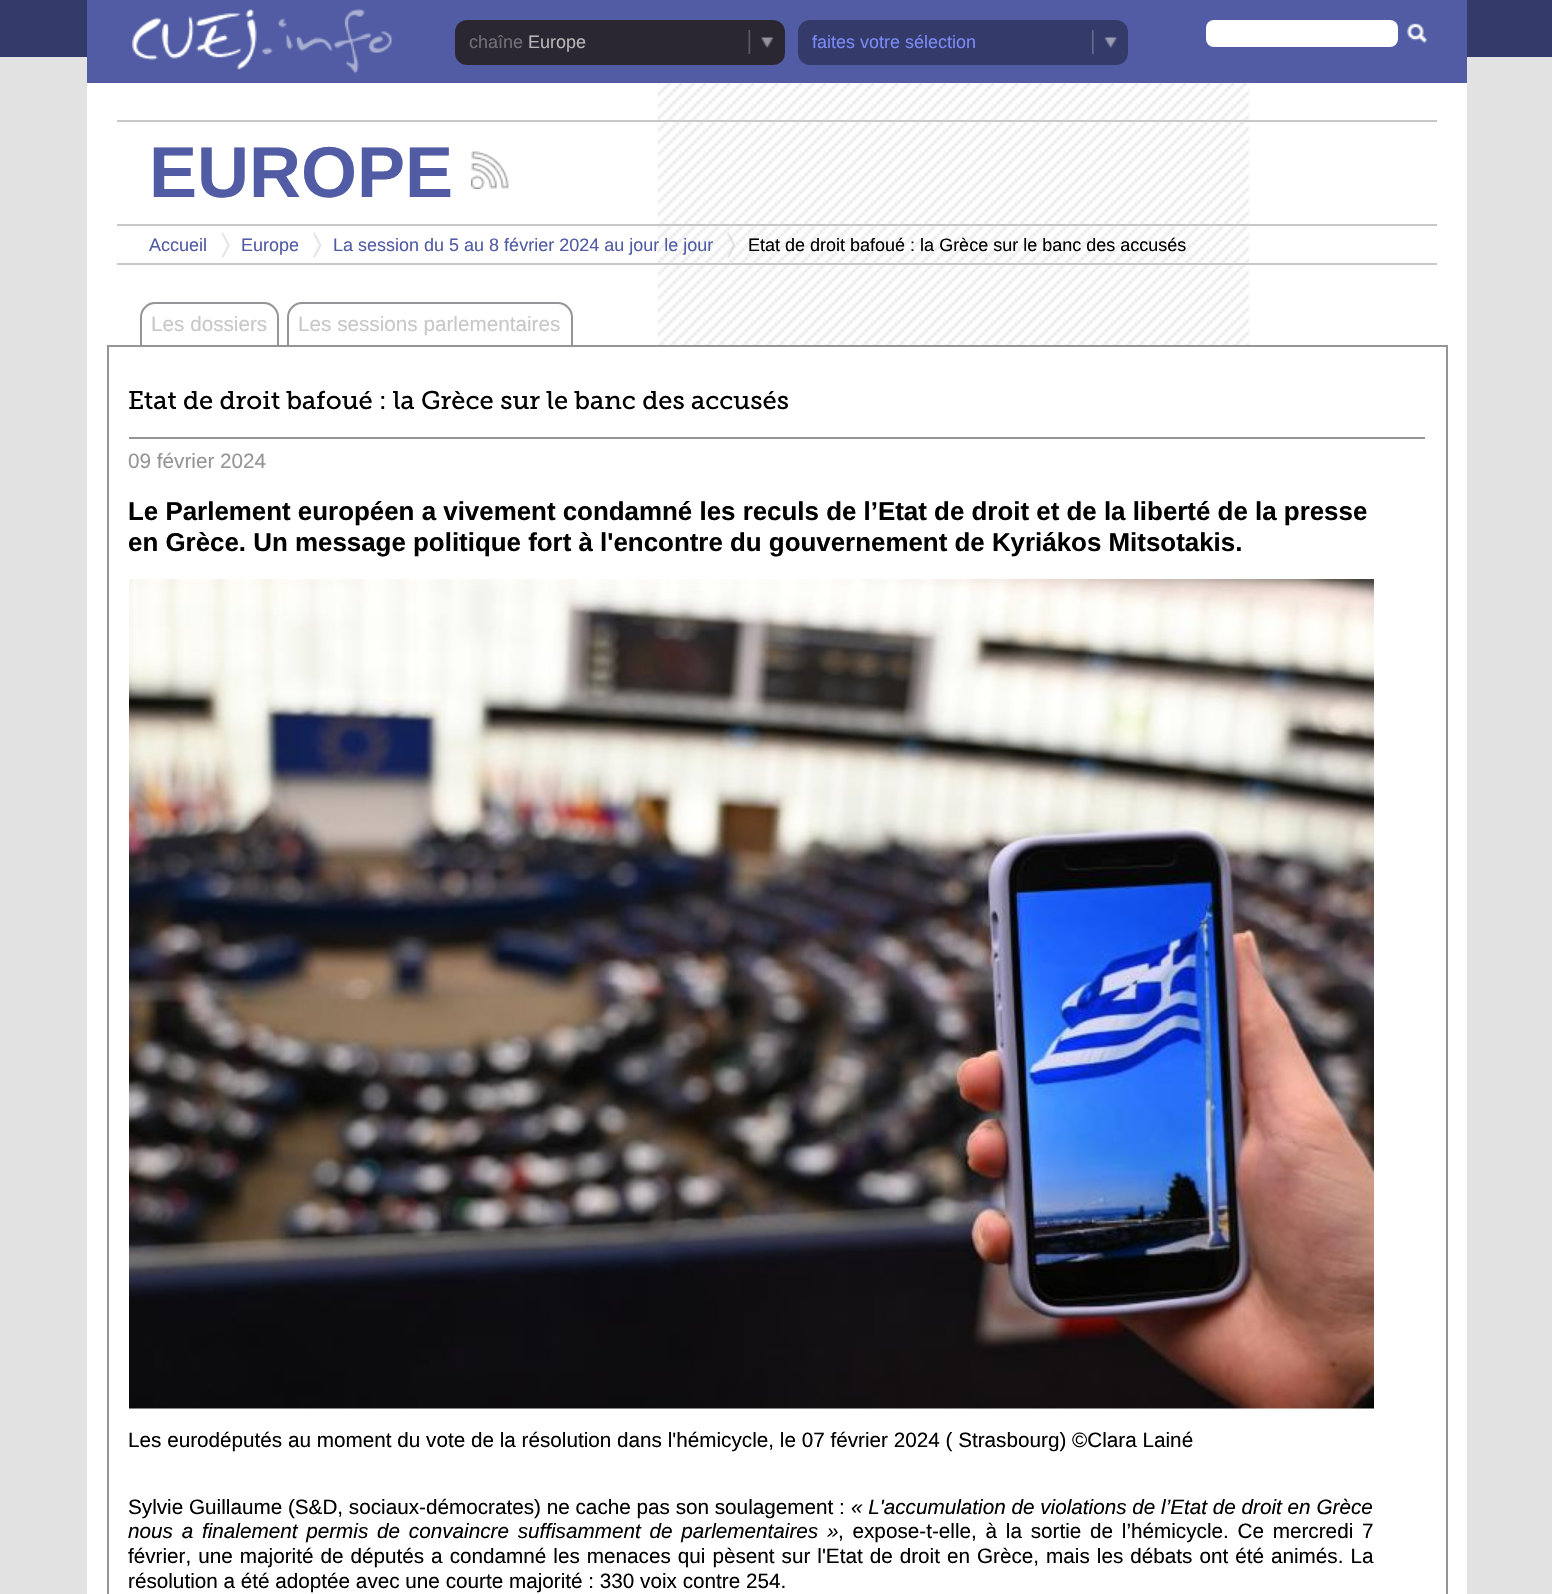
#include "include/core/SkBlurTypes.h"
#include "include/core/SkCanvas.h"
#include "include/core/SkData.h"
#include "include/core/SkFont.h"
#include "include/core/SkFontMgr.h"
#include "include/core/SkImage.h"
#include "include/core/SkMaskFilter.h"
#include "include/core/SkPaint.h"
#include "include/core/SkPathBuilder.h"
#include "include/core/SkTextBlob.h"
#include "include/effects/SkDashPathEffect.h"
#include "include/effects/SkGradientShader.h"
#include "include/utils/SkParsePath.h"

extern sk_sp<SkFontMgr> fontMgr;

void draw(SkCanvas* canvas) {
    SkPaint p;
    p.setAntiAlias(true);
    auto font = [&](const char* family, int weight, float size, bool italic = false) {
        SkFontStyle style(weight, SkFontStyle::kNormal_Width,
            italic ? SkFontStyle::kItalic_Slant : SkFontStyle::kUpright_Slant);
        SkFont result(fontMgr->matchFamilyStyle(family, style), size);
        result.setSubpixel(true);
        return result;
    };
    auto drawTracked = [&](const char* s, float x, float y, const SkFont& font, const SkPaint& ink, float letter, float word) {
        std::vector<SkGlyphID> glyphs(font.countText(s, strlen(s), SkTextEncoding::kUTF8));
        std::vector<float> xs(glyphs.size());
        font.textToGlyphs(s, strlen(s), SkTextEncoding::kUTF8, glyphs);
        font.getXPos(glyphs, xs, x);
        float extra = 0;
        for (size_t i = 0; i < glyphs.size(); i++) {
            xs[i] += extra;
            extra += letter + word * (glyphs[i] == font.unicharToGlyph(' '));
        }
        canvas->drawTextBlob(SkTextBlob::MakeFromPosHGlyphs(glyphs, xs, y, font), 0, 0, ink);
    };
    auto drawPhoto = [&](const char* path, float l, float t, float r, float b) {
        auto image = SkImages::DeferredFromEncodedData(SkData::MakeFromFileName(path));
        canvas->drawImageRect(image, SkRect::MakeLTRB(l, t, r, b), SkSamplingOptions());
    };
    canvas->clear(0xFF343B6A);
    p.setColor(0xFFE2E2E2);
    canvas->drawRect(SkRect::MakeLTRB(0, 57, 1552, 1594), p);
    p.setColor(0xFF515CA4);
    canvas->drawRect(SkRect::MakeLTRB(87, 0, 1467, 83), p);
    drawPhoto("media/1.png", 132, 9, 393, 74);
    p.setColor(0xFF2A2733);
    canvas->drawRoundRect(SkRect::MakeLTRB(455, 20, 785, 65), 12, 12, p);
    drawPhoto("media/2.png", 748, 30, 774, 54);
    auto font1 = font("Liberation Sans", 400, 18);
    p.setColor(0xFF716F75);
    canvas->drawString("chaîne", 469, 48, font1, p);
    p.setColor(0xFFB7B6B6);
    canvas->drawString("Europe", 528, 48, font1, p);
    p.setColor(0xFF343B6A);
    canvas->drawRoundRect(SkRect::MakeLTRB(798, 20, 1128, 65), 12, 12, p);
    drawPhoto("media/3.png", 1092, 30, 1117, 54);
    p.setColor(0xFF798AF6);
    canvas->drawString("faites votre sélection", 812, 48, font1, p);
    p.setColor(0xFFFFFFFF);
    canvas->drawRoundRect(SkRect::MakeLTRB(1206, 20, 1398, 47), 8, 8, p);
    drawPhoto("media/4.png", 1406, 23, 1427, 44);
    canvas->drawRect(SkRect::MakeLTRB(87, 83, 1467, 1594), p);
    drawPhoto("media/5.png", 657, 83, 1250, 345);
    p.setColor(0xFFC8C8C8);
    canvas->drawRect(SkRect::MakeLTRB(117, 120, 1437, 122), p);
    canvas->drawRect(SkRect::MakeLTRB(117, 224, 1437, 226), p);
    auto font2 = font("Liberation Sans", 700, 72);
    p.setColor(0xFF515CA4);
    canvas->drawString("EUROPE", 149, 197, font2, p);
    drawPhoto("media/6.png", 471, 151, 509, 189);
    p.setColor(0xFFC8C8C8);
    canvas->drawRect(SkRect::MakeLTRB(117, 263, 1437, 265), p);
    p.setColor(0xFF515CA4);
    canvas->drawString("Accueil", 149, 251, font1, p);
    drawPhoto("media/7.png", 221, 232, 230, 258);
    canvas->drawString("Europe", 241, 251, font1, p);
    drawPhoto("media/8.png", 313, 232, 321, 258);
    canvas->drawString("La session du 5 au 8 février 2024 au jour le jour", 333, 251, font1, p);
    drawPhoto("media/9.png", 727, 232, 735, 258);
    p.setColor(0xFF000000);
    canvas->drawString("Etat de droit bafoué : la Grèce sur le banc des accusés", 748, 251, font1, p);
    p.setStyle(SkPaint::kStroke_Style);
    p.setStrokeWidth(2);
    p.setColor(0xFF959496);
    canvas->drawRect(SkRect::MakeLTRB(108, 346, 1447, 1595), p);
    canvas->drawPath(SkPathBuilder().moveTo(155, 303).lineTo(264, 303).cubicTo(271.5f, 303, 278, 309.5f, 278, 317).lineTo(278, 346).lineTo(141, 346).lineTo(141, 317).cubicTo(141, 309.5f, 147.5f, 303, 155, 303).close().detach(), p);
    auto font3 = font("Liberation Sans", 400, 20.7f);
    p.setStyle(SkPaint::kFill_Style);
    p.setColor(0xFFC8C8C8);
    canvas->drawString("Les dossiers", 151, 331, font3, p);
    p.setStyle(SkPaint::kStroke_Style);
    p.setColor(0xFF959496);
    canvas->drawPath(SkPathBuilder().moveTo(302, 303).lineTo(558, 303).cubicTo(565.5f, 303, 572, 309.5f, 572, 317).lineTo(572, 346).lineTo(288, 346).lineTo(288, 317).cubicTo(288, 309.5f, 294.5f, 303, 302, 303).close().detach(), p);
    p.setStyle(SkPaint::kFill_Style);
    p.setColor(0xFFC8C8C8);
    canvas->drawString("Les sessions parlementaires", 298, 331, font3, p);
    auto font4 = font("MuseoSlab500", 400, 25.5f);
    p.setColor(0xFF000000);
    canvas->drawString("Etat de droit bafoué : la Grèce sur le banc des accusés", 128, 409, font4, p);
    p.setColor(0xFF959496);
    canvas->drawRect(SkRect::MakeLTRB(129, 437, 1425, 439), p);
    canvas->drawString("09 février 2024", 128, 468, font3, p);
    auto font5 = font("Liberation Sans", 700, 25.9f);
    p.setColor(0xFF000000);
    canvas->drawString("Le Parlement européen a vivement condamné les reculs de l’Etat de droit et de la liberté de la presse", 128, 520, font5, p);
    canvas->drawString("en Grèce. Un message politique fort à l'encontre du gouvernement de Kyriákos Mitsotakis.", 128, 551, font5, p);
    drawPhoto("media/10.png", 129, 579, 1374, 1409);
    canvas->drawString("Les eurodéputés au moment du vote de la résolution dans l'hémicycle, le 07 février 2024 ( Strasbourg) ©Clara Lainé", 128, 1447, font3, p);
    canvas->drawString("Sylvie Guillaume (S&D, sociaux-démocrates) ne cache pas son soulagement :", 128, 1514, font3, p);
    auto font6 = font("Liberation Sans", 400, 20.7f, true);
    canvas->drawString("« L'accumulation de violations de l’Etat de droit en Grèce", 851, 1514, font6, p);
    drawTracked("nous a finalement permis de convaincre suffisamment de parlementaires »", 128, 1538, font6, p, 0, 3);
    drawTracked(", expose-t-elle, à la sortie de l’hémicycle. Ce mercredi 7", 838, 1538, font3, p, 0, 3);
    drawTracked("février, une majorité de députés a condamné les menaces qui pèsent sur l'Etat de droit en Grèce, mais les débats ont été animés. La", 128, 1563, font3, p, 0, 1.25f);
    canvas->drawString("résolution a été adoptée avec une courte majorité : 330 voix contre 254.", 128, 1588, font3, p);
}
